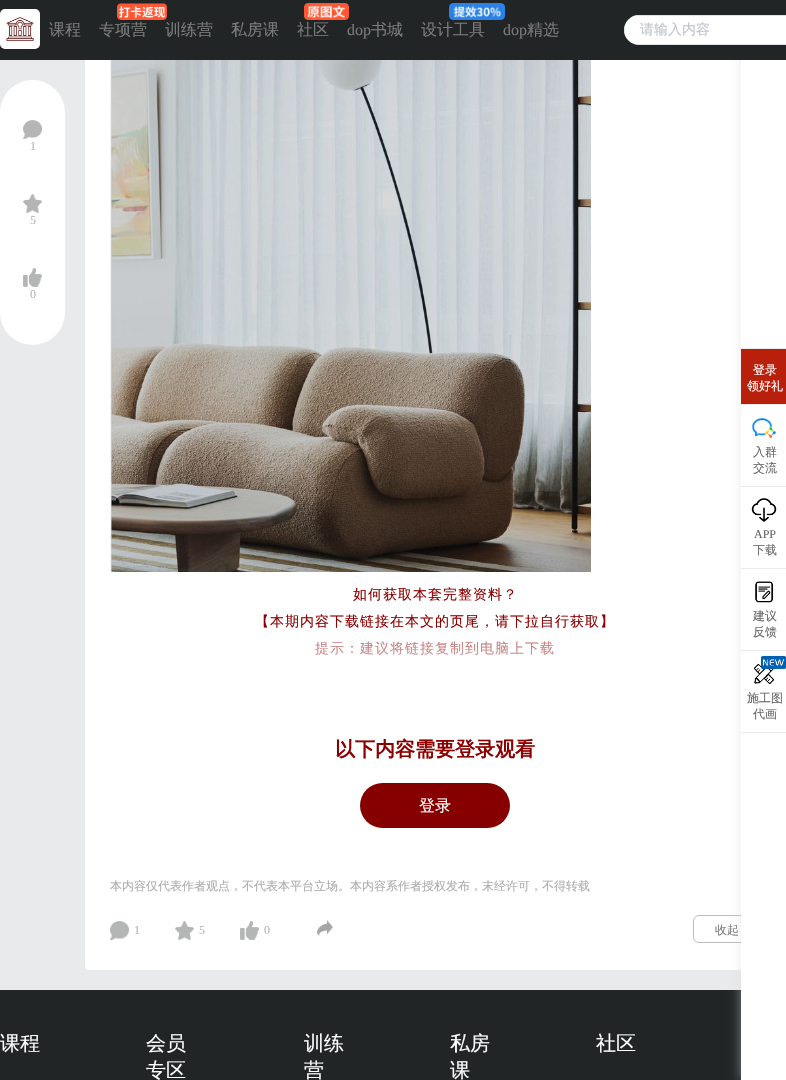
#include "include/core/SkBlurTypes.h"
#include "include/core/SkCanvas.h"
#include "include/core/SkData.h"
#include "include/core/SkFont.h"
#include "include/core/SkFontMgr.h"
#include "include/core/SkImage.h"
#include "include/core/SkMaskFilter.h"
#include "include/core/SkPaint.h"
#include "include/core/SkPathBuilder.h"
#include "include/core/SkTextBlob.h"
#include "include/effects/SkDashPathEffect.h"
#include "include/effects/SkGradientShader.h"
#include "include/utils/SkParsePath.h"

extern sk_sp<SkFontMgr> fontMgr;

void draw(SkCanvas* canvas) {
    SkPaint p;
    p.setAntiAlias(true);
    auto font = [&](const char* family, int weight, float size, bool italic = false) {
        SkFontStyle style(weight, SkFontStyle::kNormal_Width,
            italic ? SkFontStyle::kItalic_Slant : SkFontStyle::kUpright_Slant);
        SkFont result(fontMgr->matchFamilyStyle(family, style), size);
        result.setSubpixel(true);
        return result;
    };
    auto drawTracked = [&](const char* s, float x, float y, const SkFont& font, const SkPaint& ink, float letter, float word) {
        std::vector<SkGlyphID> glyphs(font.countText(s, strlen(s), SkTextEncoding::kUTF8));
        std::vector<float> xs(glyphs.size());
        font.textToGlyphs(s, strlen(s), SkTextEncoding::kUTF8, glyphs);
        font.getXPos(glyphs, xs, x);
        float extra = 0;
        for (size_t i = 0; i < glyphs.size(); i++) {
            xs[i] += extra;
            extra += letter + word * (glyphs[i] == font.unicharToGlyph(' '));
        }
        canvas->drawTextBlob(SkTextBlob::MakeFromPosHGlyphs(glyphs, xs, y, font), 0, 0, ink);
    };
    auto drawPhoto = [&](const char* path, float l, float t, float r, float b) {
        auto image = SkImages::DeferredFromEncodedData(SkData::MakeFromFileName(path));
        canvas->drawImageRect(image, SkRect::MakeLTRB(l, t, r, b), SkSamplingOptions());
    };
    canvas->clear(0xFFE9EAEB);
    p.setColor(0xFFFFFFFF);
    canvas->drawRoundRect(SkRect::MakeLTRB(85, -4, 785, 970), 4, 4, p);
    p.setStyle(SkPaint::kStroke_Style);
    p.setStrokeWidth(1);
    p.setColor(0xFFBDBDBD);
    canvas->drawRoundRect(SkRect::MakeLTRB(693.5f, 915.5f, 759.5f, 942.5f), 5.5f, 5.5f, p);
    p.setStyle(SkPaint::kFill_Style);
    p.setColor(0xFF222526);
    canvas->drawRect(SkRect::MakeLTRB(0, 990, 741, 1080), p);
    p.setColor(0x70D6D6D6);
    p.setMaskFilter(SkMaskFilter::MakeBlur(kNormal_SkBlurStyle, 5));
    canvas->drawRect(SkRect::MakeLTRB(740, 0, 785, 1080), p);
    p.setMaskFilter(nullptr);
    p.setColor(0xFF222526);
    canvas->drawRect(SkRect::MakeLTRB(0, 0, 786, 60), p);
    drawPhoto("media/1.png", 0, 9, 40, 49);
    auto font1 = font("WenQuanYi Zen Hei", 500, 16);
    p.setColor(0xFF7B7B7B);
    canvas->drawString("课程", 49, 35, font1, p);
    drawPhoto("media/2.png", 117, 3, 167, 20);
    {
        const struct { const char* s; float x, y; } items[] = {
            {"专项营", 99, 35},
            {"训练营", 165, 35},
            {"私房课", 231, 35},
        };
        for (auto [s, x, y] : items) {
            canvas->drawString(s, x, y, font1, p);
        }
    }
    drawPhoto("media/3.png", 304, 3, 349, 20);
    canvas->drawString("社区", 297, 35, font1, p);
    auto font2 = font("Liberation Serif", 400, 16);
    canvas->drawString("dop", 347, 35, font2, p);
    canvas->drawString("书城", 371, 35, font1, p);
    drawPhoto("media/4.png", 449, 3, 505, 20);
    canvas->drawString("设计工具", 421, 35, font1, p);
    canvas->drawString("dop", 503, 35, font2, p);
    canvas->drawString("精选", 527, 35, font1, p);
    p.setColor(0xFFFFFFFF);
    canvas->drawRoundRect(SkRect::MakeLTRB(624, 15, 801, 45), 15, 15, p);
    p.setColor(0xFFDCDFE6);
    canvas->drawPath(SkPathBuilder(SkPathFillType::kEvenOdd).moveTo(639, 45).lineTo(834, 45).lineTo(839, 44).lineTo(634, 44).close().moveTo(625, 35).cubicTo(624, 32, 624, 28, 625, 25).close().moveTo(639, 15).lineTo(634, 16).lineTo(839, 16).lineTo(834, 15).close().moveTo(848, 25).lineTo(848, 35).cubicTo(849, 32, 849, 28, 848, 25).close().detach(), p);
    auto font3 = font("WenQuanYi Zen Hei", 500, 14);
    p.setColor(0xFFC0C4CC);
    canvas->drawString("请输入内容", 640, 34, font3, p);
    p.setColor(0xFFFFFFFF);
    canvas->drawRoundRect(SkRect::MakeLTRB(0, 80, 65, 345), 32.5f, 32.5f, p);
    drawPhoto("media/5.png", 23, 120, 42, 139);
    auto font4 = font("Liberation Serif", 400, 12);
    p.setColor(0xFFB4B5B5);
    canvas->drawString("1", 30, 150, font4, p);
    drawPhoto("media/6.png", 23, 194, 42, 213);
    canvas->drawString("5", 30, 224, font4, p);
    drawPhoto("media/7.png", 23, 268, 42, 287);
    canvas->drawString("0", 30, 298, font4, p);
    drawPhoto("media/8.png", 110, 60, 591, 572);
    p.setColor(0xFF8C0000);
    {
        const struct { const char* s; float x, y; } items[] = {
            {"如何获取本套完整资料？", 353, 599},
            {"【本期内容下载链接在本文的页尾，请下拉自行获取】", 255, 626},
            {"提示：建议将链接复制到电脑上下载", 315, 653},
        };
        for (auto [s, x, y] : items) {
            drawTracked(s, x, y, font3, p, 1, 0);
        }
    }
    {
        const SkColor colors[] = {0x80FFFFFF, 0xFFFFFFFF};
        const float stops[] = {0.04f, 0.24f};
        const SkPoint ends[] = {{435, 638}, {435, 858}};
        p.setShader(SkGradientShader::MakeLinear(ends, colors, stops, 2, SkTileMode::kClamp));
        p.setAlpha(255);
    }
    canvas->drawRect(SkRect::MakeLTRB(315, 641, 554, 656), p);
    auto font5 = font("WenQuanYi Zen Hei", 700, 20);
    p.setShader(nullptr);
    p.setColor(0xFF8C0000);
    canvas->drawString("以下内容需要登录观看", 335, 756, font5, p);
    p.setColor(0xFF870000);
    canvas->drawRoundRect(SkRect::MakeLTRB(360, 783, 510, 828), 22.5f, 22.5f, p);
    p.setColor(0xFFFFFFFF);
    canvas->drawString("登录", 419, 811, font1, p);
    auto font6 = font("WenQuanYi Zen Hei", 500, 12);
    p.setColor(0xFFACACAC);
    canvas->drawString("本内容仅代表作者观点，不代表本平台立场。本内容系作者授权发布，末经许可，不得转载", 110, 890, font6, p);
    drawPhoto("media/5.png", 110, 921, 129, 940);
    p.setColor(0xFFB4B5B5);
    canvas->drawString("1", 134, 934, font4, p);
    drawPhoto("media/9.png", 175, 921, 194, 940);
    canvas->drawString("5", 199, 934, font4, p);
    drawPhoto("media/10.png", 240, 921, 259, 940);
    canvas->drawString("0", 264, 934, font4, p);
    drawPhoto("media/11.png", 317, 920, 333, 936);
    p.setColor(0xFF7B7B7B);
    canvas->drawString("收起", 715, 934, font6, p);
    {
        const struct { float l, t, r, b; SkColor color; } items[] = {
            {741, 60, 786, 1080, 0xFFFFFFFF},
            {741, 348, 786, 349, 0xFFEAEAEA},
            {741, 404, 786, 405, 0xFFEAEAEA},
            {741, 349, 786, 404, 0xFFB9200B},
        };
        for (auto [l, t, r, b, color] : items) {
            p.setColor(color);
            canvas->drawRect(SkRect::MakeLTRB(l, t, r, b), p);
        }
    }
    p.setColor(0xFFFFFFFF);
    canvas->drawString("登录", 753, 374, font6, p);
    canvas->drawString("领好礼", 747, 390, font6, p);
    p.setColor(0xFFEAEAEA);
    canvas->drawRect(SkRect::MakeLTRB(741, 486, 786, 487), p);
    drawPhoto("media/12.png", 751, 418, 777, 439);
    p.setColor(0xFF666666);
    canvas->drawString("入群", 753, 456, font6, p);
    canvas->drawString("交流", 753, 472, font6, p);
    p.setColor(0xFFEAEAEA);
    canvas->drawRect(SkRect::MakeLTRB(741, 568, 786, 569), p);
    drawPhoto("media/13.png", 751, 498, 777, 522);
    p.setColor(0xFF666666);
    canvas->drawString("APP", 754, 538, font4, p);
    canvas->drawString("下载", 753, 554, font6, p);
    p.setColor(0xFFEAEAEA);
    canvas->drawRect(SkRect::MakeLTRB(741, 650, 786, 651), p);
    drawPhoto("media/14.png", 755, 581, 773, 603);
    p.setColor(0xFF666666);
    canvas->drawString("建议", 753, 620, font6, p);
    canvas->drawString("反馈", 753, 636, font6, p);
    p.setColor(0xFFEAEAEA);
    canvas->drawRect(SkRect::MakeLTRB(741, 732, 786, 733), p);
    drawPhoto("media/16.png", 754, 664, 774, 684);
    drawPhoto("media/15.png", 761, 655, 786, 669);
    p.setColor(0xFF666666);
    canvas->drawString("施工图", 747, 702, font6, p);
    canvas->drawString("代画", 753, 718, font6, p);
    auto font7 = font("WenQuanYi Zen Hei", 500, 20);
    p.setColor(0xFFFFFFFF);
    {
        const struct { const char* s; float x, y; } items[] = {
            {"课程", 0, 1050},
            {"会员", 146, 1050},
            {"专区", 146, 1077},
            {"训练", 304, 1050},
            {"营", 304, 1077},
            {"私房", 450, 1050},
            {"课", 450, 1077},
            {"社区", 596, 1050},
        };
        for (auto [s, x, y] : items) {
            canvas->drawString(s, x, y, font7, p);
        }
    }
}
